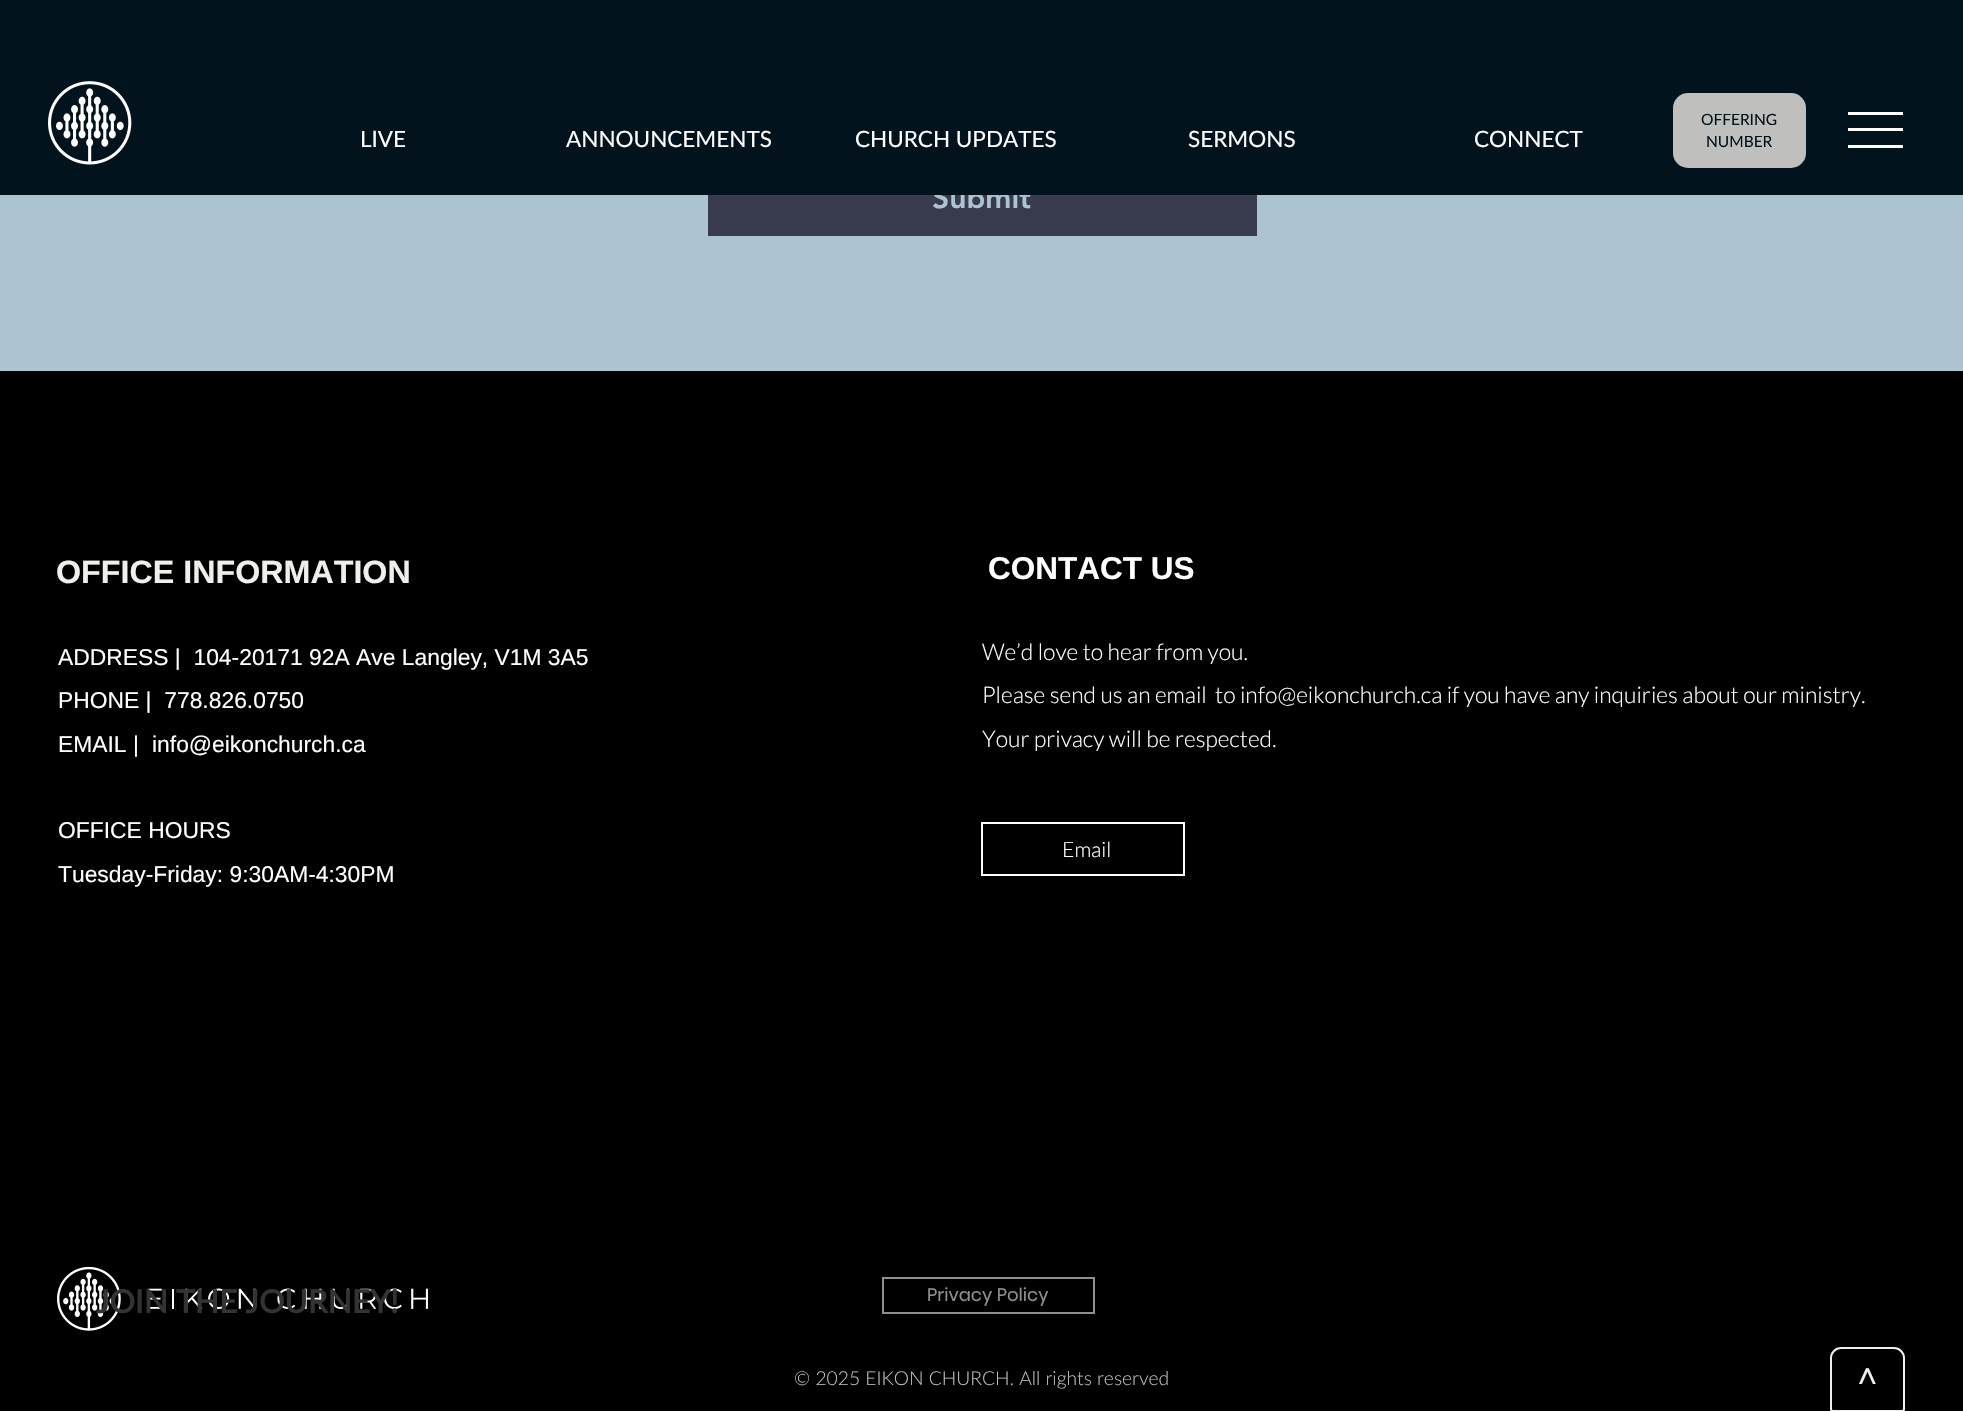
#include "include/core/SkBlurTypes.h"
#include "include/core/SkCanvas.h"
#include "include/core/SkData.h"
#include "include/core/SkFont.h"
#include "include/core/SkFontMgr.h"
#include "include/core/SkImage.h"
#include "include/core/SkMaskFilter.h"
#include "include/core/SkPaint.h"
#include "include/core/SkPathBuilder.h"
#include "include/core/SkTextBlob.h"
#include "include/effects/SkDashPathEffect.h"
#include "include/effects/SkGradientShader.h"
#include "include/utils/SkParsePath.h"

extern sk_sp<SkFontMgr> fontMgr;

void draw(SkCanvas* canvas) {
    SkPaint p;
    p.setAntiAlias(true);
    auto font = [&](const char* family, int weight, float size, bool italic = false) {
        SkFontStyle style(weight, SkFontStyle::kNormal_Width,
            italic ? SkFontStyle::kItalic_Slant : SkFontStyle::kUpright_Slant);
        SkFont result(fontMgr->matchFamilyStyle(family, style), size);
        result.setSubpixel(true);
        return result;
    };
    auto drawPhoto = [&](const char* path, float l, float t, float r, float b) {
        auto image = SkImages::DeferredFromEncodedData(SkData::MakeFromFileName(path));
        canvas->drawImageRect(image, SkRect::MakeLTRB(l, t, r, b), SkSamplingOptions());
    };
    canvas->clear(0xFFACC3D2);
    p.setColor(0xFF373B4D);
    canvas->drawRect(SkRect::MakeLTRB(708, 195, 1257, 236), p);
    auto font1 = font("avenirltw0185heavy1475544", 900, 30);
    p.setColor(0xFFACC3D2);
    canvas->drawString("Submit", 932, 208, font1, p);
    p.setColor(0xFF03131E);
    canvas->drawRect(SkRect::MakeLTRB(0, 0, 1963, 195), p);
    drawPhoto("media/1.png", 48, 81, 132, 165);
    auto font2 = font("Lato", 400, 22.5f);
    p.setColor(0xFFFFFFFF);
    {
        const struct { const char* s; float x, y; } items[] = {
            {"LIVE", 360, 147},
            {"ANNOUNCEMENTS", 566, 147},
            {"CHURCH UPDATES", 855, 147},
            {"SERMONS", 1188, 147},
            {"CONNECT", 1474, 147},
        };
        for (auto [s, x, y] : items) {
            canvas->drawString(s, x, y, font2, p);
        }
    }
    p.setColor(0xFFBFBFBD);
    canvas->drawRoundRect(SkRect::MakeLTRB(1673, 93, 1806, 168), 15, 15, p);
    auto font3 = font("Lato", 400, 15.5f);
    p.setColor(0xFF03131E);
    canvas->drawString("OFFERING", 1701, 125, font3, p);
    canvas->drawString("NUMBER", 1706, 147, font3, p);
    {
        const struct { float l, t, r, b; SkColor color; } items[] = {
            {1848, 145, 1903, 148, 0xFFFFFFFF},
            {1848, 128, 1903, 131, 0xFFFFFFFF},
            {1848, 112, 1903, 115, 0xFFFFFFFF},
            {0, 371, 1963, 1411, 0xFF000000},
        };
        for (auto [l, t, r, b, color] : items) {
            p.setColor(color);
            canvas->drawRect(SkRect::MakeLTRB(l, t, r, b), p);
        }
    }
    auto font4 = font("Liberation Sans", 700, 32.25f);
    p.setColor(0xFFEFEFEC);
    canvas->drawString("OFFICE INFORMATION", 56, 583, font4, p);
    auto font5 = font("Liberation Sans", 400, 22.85f);
    p.setColor(0xFFFFFFFF);
    {
        const struct { const char* s; float x, y; } items[] = {
            {"ADDRESS |  104-20171 92A Ave Langley, V1M 3A5", 58, 665},
            {"PHONE |  778.826.0750", 58, 708},
            {"EMAIL |", 58, 752},
            {"info@eikonchurch.ca", 152, 752},
            {"OFFICE HOURS", 58, 838},
            {"Tuesday-Friday: 9:30AM-4:30PM", 58, 882},
        };
        for (auto [s, x, y] : items) {
            canvas->drawString(s, x, y, font5, p);
        }
    }
    drawPhoto("media/2.png", 57, 1266, 428, 1331);
    auto font6 = font("Lato", 700, 31.75f);
    p.setColor(0xFF333333);
    canvas->drawString("JOIN THE JOURNEY!", 96, 1313, font6, p);
    auto font7 = font("Liberation Sans", 700, 31.5f);
    p.setColor(0xFFFFFFFF);
    canvas->drawString("CONTACT US", 988, 579, font7, p);
    auto font8 = font("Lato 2", 300, 22.85f);
    {
        const struct { const char* s; float x, y; } items[] = {
            {"We’d love to hear from you.", 982, 660},
            {"Please send us an email", 982, 703},
            {"to info@eikonchurch.ca if you have any inquiries about our ministry.", 1215, 703},
            {"Your privacy will be respected.", 982, 747},
        };
        for (auto [s, x, y] : items) {
            canvas->drawString(s, x, y, font8, p);
        }
    }
    p.setStyle(SkPaint::kStroke_Style);
    p.setStrokeWidth(2);
    canvas->drawRect(SkRect::MakeLTRB(982, 823, 1184, 875), p);
    auto font9 = font("Lato 2", 300, 21);
    p.setStyle(SkPaint::kFill_Style);
    canvas->drawString("Email", 1062, 857, font9, p);
    p.setStyle(SkPaint::kStroke_Style);
    p.setColor(0xFF8F8F8E);
    canvas->drawRect(SkRect::MakeLTRB(883, 1278, 1094, 1313), p);
    auto font10 = font("Poppins", 400, 18);
    p.setStyle(SkPaint::kFill_Style);
    canvas->drawString("Privacy Policy", 927, 1301, font10, p);
    auto font11 = font("Lato", 300, 19.25f);
    p.setColor(0xFFBFBFBD);
    canvas->drawString("© 2025 EIKON CHURCH. All rights reserved", 794, 1385, font11, p);
    p.setStyle(SkPaint::kStroke_Style);
    p.setColor(0xFFEFEFEC);
    canvas->drawPath(SkPathBuilder().moveTo(1841, 1348).lineTo(1894, 1348).cubicTo(1899.5f, 1348, 1904, 1352.5f, 1904, 1358).lineTo(1904, 1409).cubicTo(1904, 1410, 1903, 1411, 1902, 1411).lineTo(1833, 1411).cubicTo(1832, 1411, 1831, 1410, 1831, 1409).lineTo(1831, 1358).cubicTo(1831, 1352.5f, 1835.5f, 1348, 1841, 1348).close().detach(), p);
    auto font12 = font("Poppins", 400, 30);
    p.setStyle(SkPaint::kFill_Style);
    canvas->drawString("^", 1858, 1389, font12, p);
}
